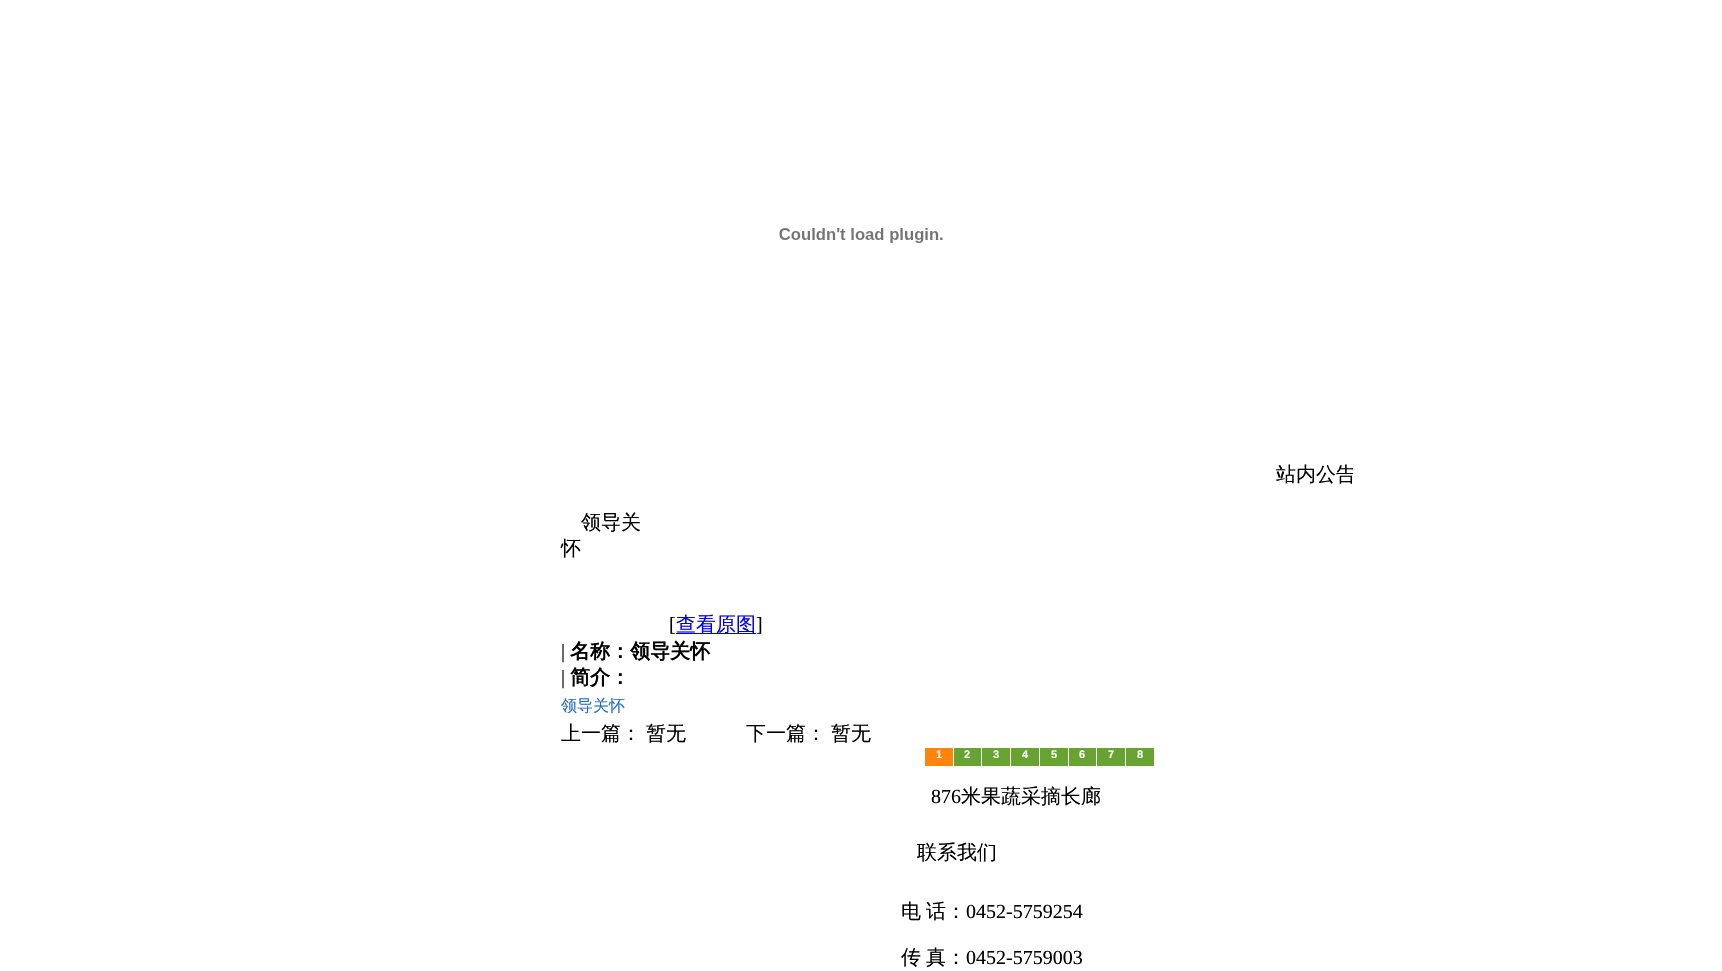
#include "include/core/SkBlurTypes.h"
#include "include/core/SkCanvas.h"
#include "include/core/SkData.h"
#include "include/core/SkFont.h"
#include "include/core/SkFontMgr.h"
#include "include/core/SkImage.h"
#include "include/core/SkMaskFilter.h"
#include "include/core/SkPaint.h"
#include "include/core/SkPathBuilder.h"
#include "include/core/SkTextBlob.h"
#include "include/effects/SkDashPathEffect.h"
#include "include/effects/SkGradientShader.h"
#include "include/utils/SkParsePath.h"

extern sk_sp<SkFontMgr> fontMgr;

void draw(SkCanvas* canvas) {
    SkPaint p;
    p.setAntiAlias(true);
    auto font = [&](const char* family, int weight, float size, bool italic = false) {
        SkFontStyle style(weight, SkFontStyle::kNormal_Width,
            italic ? SkFontStyle::kItalic_Slant : SkFontStyle::kUpright_Slant);
        SkFont result(fontMgr->matchFamilyStyle(family, style), size);
        result.setSubpixel(true);
        return result;
    };
    auto drawTracked = [&](const char* s, float x, float y, const SkFont& font, const SkPaint& ink, float letter, float word) {
        std::vector<SkGlyphID> glyphs(font.countText(s, strlen(s), SkTextEncoding::kUTF8));
        std::vector<float> xs(glyphs.size());
        font.textToGlyphs(s, strlen(s), SkTextEncoding::kUTF8, glyphs);
        font.getXPos(glyphs, xs, x);
        float extra = 0;
        for (size_t i = 0; i < glyphs.size(); i++) {
            xs[i] += extra;
            extra += letter + word * (glyphs[i] == font.unicharToGlyph(' '));
        }
        canvas->drawTextBlob(SkTextBlob::MakeFromPosHGlyphs(glyphs, xs, y, font), 0, 0, ink);
    };
    auto drawPhoto = [&](const char* path, float l, float t, float r, float b) {
        auto image = SkImages::DeferredFromEncodedData(SkData::MakeFromFileName(path));
        canvas->drawImageRect(image, SkRect::MakeLTRB(l, t, r, b), SkSamplingOptions());
    };
    canvas->clear(0xFFFFFFFF);
    drawPhoto("media/1.png", 779, 228, 943, 243);
    canvas->save();
    canvas->clipRect(SkRect::MakeLTRB(371, 463, 1353, 489));
    auto font1 = font("WenQuanYi Zen Hei", 500, 20);
    p.setColor(0xFF000000);
    canvas->drawString("站内公告", 1276, 481, font1, p);
    canvas->restore();
    canvas->drawString("领导关", 581, 529, font1, p);
    canvas->drawString("怀", 561, 555, font1, p);
    auto font2 = font("Liberation Serif", 400, 20);
    canvas->drawString("[", 669, 631, font2, p);
    p.setColor(0xFF0000EE);
    canvas->drawRect(SkRect::MakeLTRB(676, 633, 756, 634), p);
    canvas->drawString("查看原图", 676, 631, font1, p);
    p.setColor(0xFF000000);
    canvas->drawString("]", 756, 631, font2, p);
    canvas->drawString("|", 561, 658, font2, p);
    auto font3 = font("WenQuanYi Zen Hei", 700, 20);
    canvas->drawString("名称：领导关怀", 570, 658, font3, p);
    canvas->drawString("|", 561, 684, font2, p);
    canvas->drawString("简介：", 570, 684, font3, p);
    auto font4 = font("WenQuanYi Zen Hei", 500, 16);
    p.setColor(0xFF226DC4);
    canvas->drawString("领导关怀", 561, 711, font4, p);
    p.setColor(0xFF000000);
    {
        const struct { const char* s; float x, y; } items[] = {
            {"上一篇：", 561, 740},
            {"暂无", 646, 740},
            {"下一篇：", 746, 740},
            {"暂无", 831, 740},
        };
        for (auto [s, x, y] : items) {
            canvas->drawString(s, x, y, font1, p);
        }
    }
    p.setColor(0xFFFF840C);
    canvas->drawRect(SkRect::MakeLTRB(925, 748, 953, 766), p);
    auto font5 = font("Liberation Sans", 700, 11);
    p.setColor(0xFFFFFFFF);
    canvas->drawString("1", 936, 758, font5, p);
    p.setColor(0xFF67A331);
    canvas->drawRect(SkRect::MakeLTRB(954, 748, 981, 766), p);
    p.setColor(0xFFFFFFFF);
    canvas->drawString("2", 964, 758, font5, p);
    p.setColor(0xFF67A331);
    canvas->drawRect(SkRect::MakeLTRB(982, 748, 1010, 766), p);
    p.setColor(0xFFFFFFFF);
    canvas->drawString("3", 993, 758, font5, p);
    p.setColor(0xFF67A331);
    canvas->drawRect(SkRect::MakeLTRB(1011, 748, 1039, 766), p);
    p.setColor(0xFFFFFFFF);
    canvas->drawString("4", 1022, 758, font5, p);
    p.setColor(0xFF67A331);
    canvas->drawRect(SkRect::MakeLTRB(1040, 748, 1068, 766), p);
    p.setColor(0xFFFFFFFF);
    canvas->drawString("5", 1051, 758, font5, p);
    p.setColor(0xFF67A331);
    canvas->drawRect(SkRect::MakeLTRB(1069, 748, 1096, 766), p);
    p.setColor(0xFFFFFFFF);
    canvas->drawString("6", 1079, 758, font5, p);
    p.setColor(0xFF67A331);
    canvas->drawRect(SkRect::MakeLTRB(1097, 748, 1125, 766), p);
    p.setColor(0xFFFFFFFF);
    canvas->drawString("7", 1108, 758, font5, p);
    p.setColor(0xFF67A331);
    canvas->drawRect(SkRect::MakeLTRB(1126, 748, 1154, 766), p);
    p.setColor(0xFFFFFFFF);
    canvas->drawString("8", 1137, 758, font5, p);
    p.setColor(0xFF000000);
    canvas->drawString("876", 931, 803, font2, p);
    canvas->drawString("米果蔬采摘长廊", 961, 803, font1, p);
    canvas->drawString("联系我们", 917, 859, font1, p);
    drawTracked("电 话：", 901, 918, font1, p, 0, -1);
    canvas->drawString("0452-5759254", 966, 918, font2, p);
    drawTracked("传 真：", 901, 964, font1, p, 0, -1);
    canvas->drawString("0452-5759003", 966, 964, font2, p);
}
